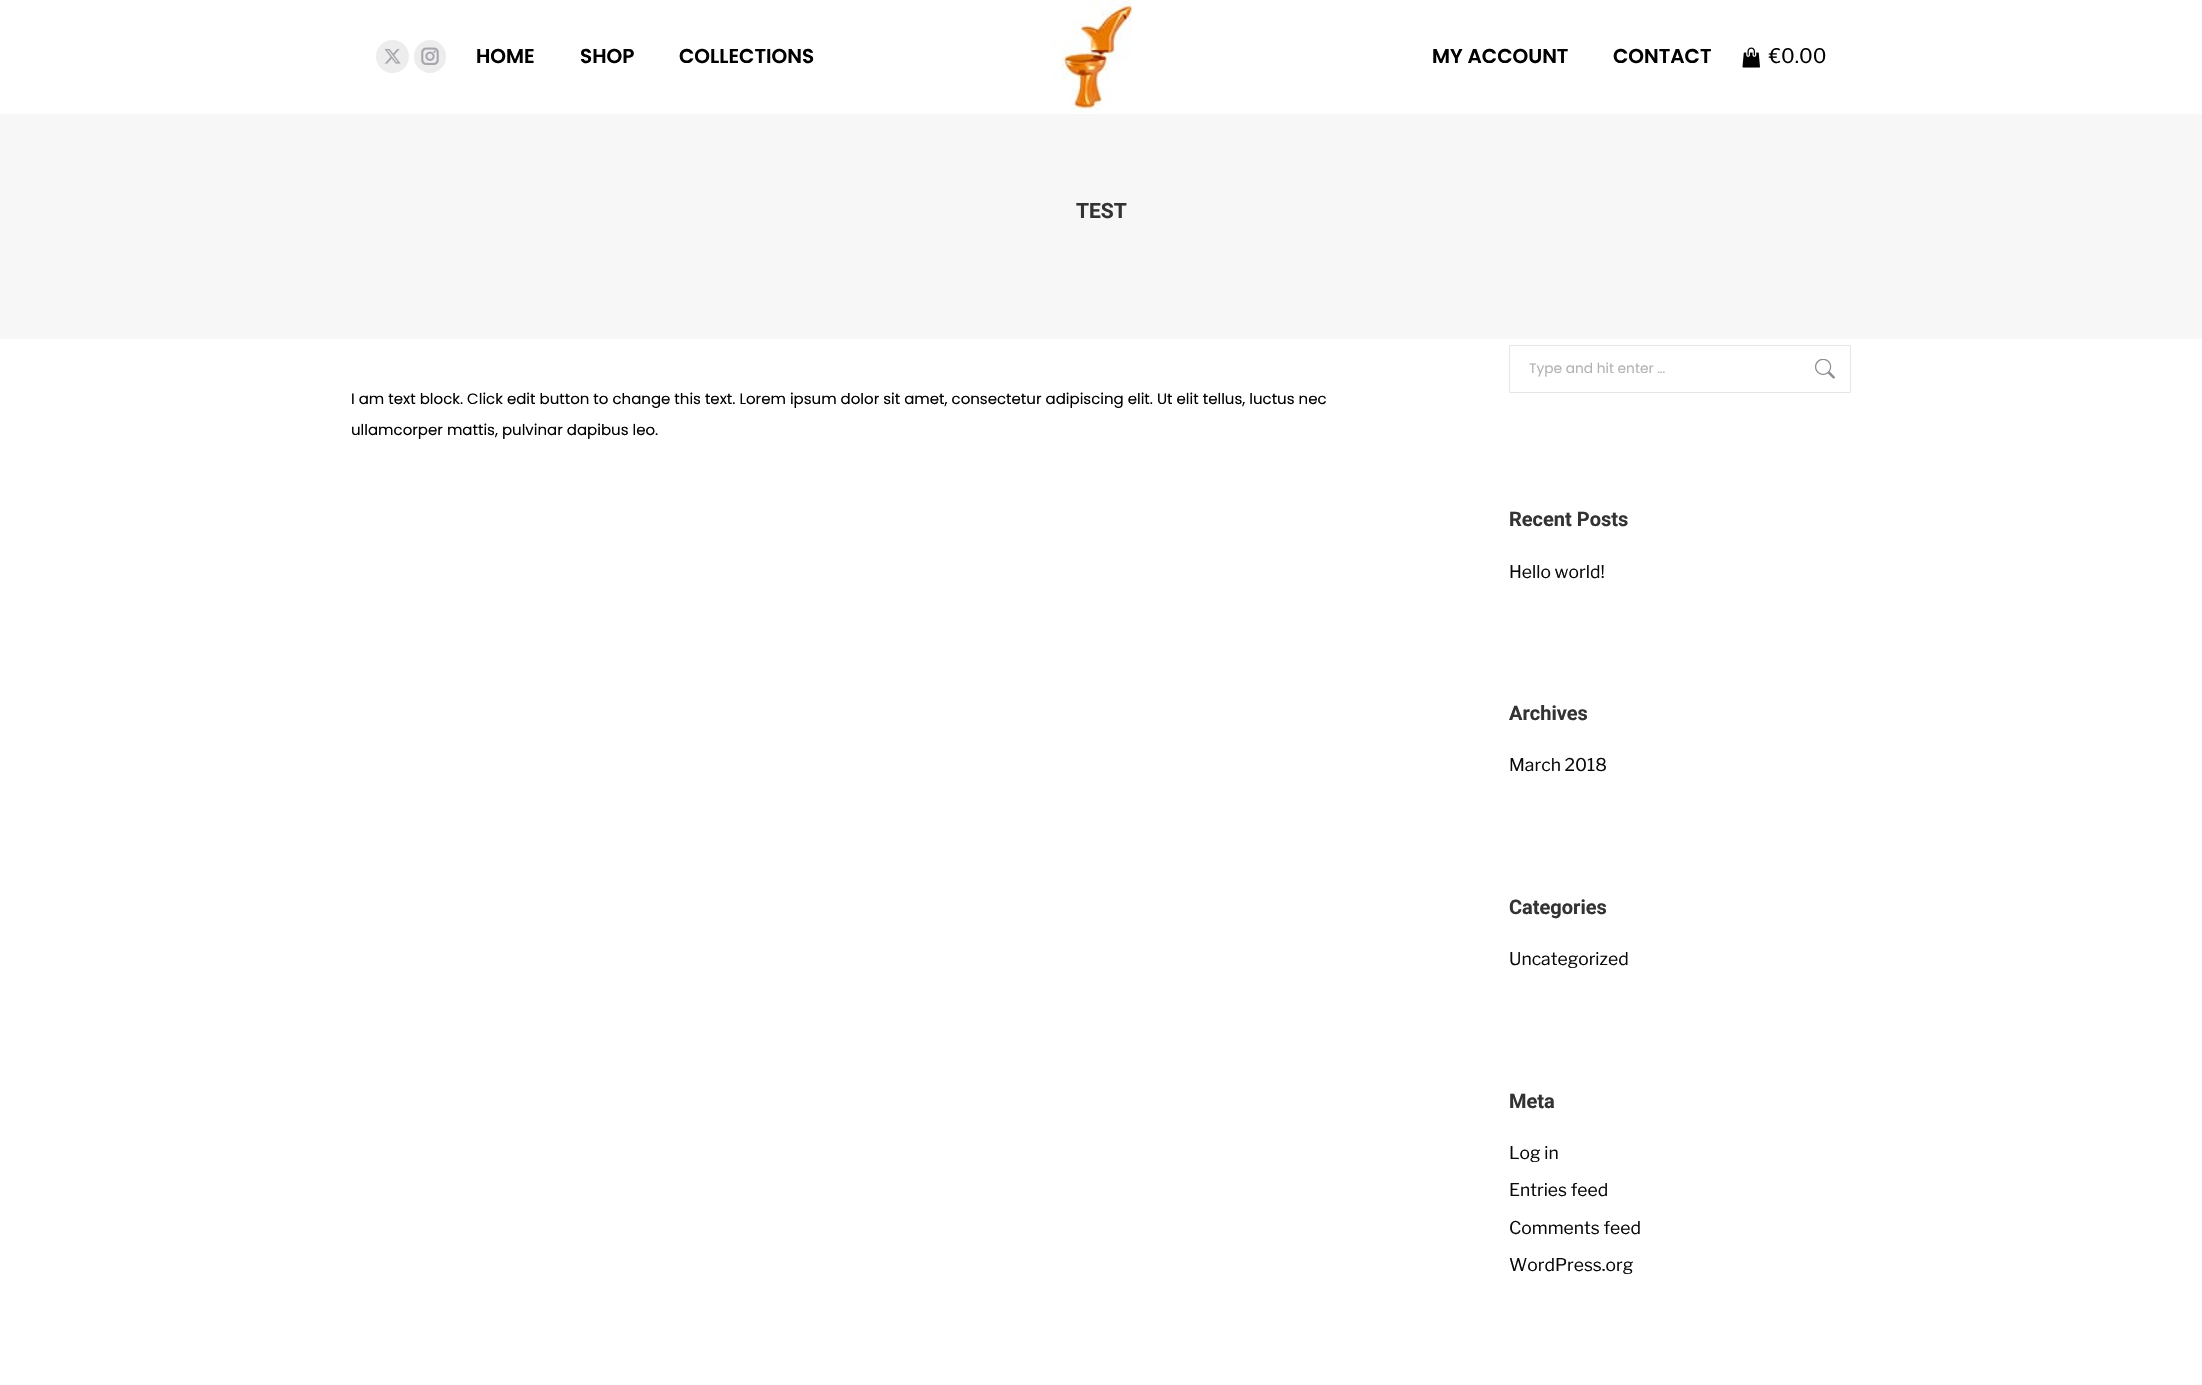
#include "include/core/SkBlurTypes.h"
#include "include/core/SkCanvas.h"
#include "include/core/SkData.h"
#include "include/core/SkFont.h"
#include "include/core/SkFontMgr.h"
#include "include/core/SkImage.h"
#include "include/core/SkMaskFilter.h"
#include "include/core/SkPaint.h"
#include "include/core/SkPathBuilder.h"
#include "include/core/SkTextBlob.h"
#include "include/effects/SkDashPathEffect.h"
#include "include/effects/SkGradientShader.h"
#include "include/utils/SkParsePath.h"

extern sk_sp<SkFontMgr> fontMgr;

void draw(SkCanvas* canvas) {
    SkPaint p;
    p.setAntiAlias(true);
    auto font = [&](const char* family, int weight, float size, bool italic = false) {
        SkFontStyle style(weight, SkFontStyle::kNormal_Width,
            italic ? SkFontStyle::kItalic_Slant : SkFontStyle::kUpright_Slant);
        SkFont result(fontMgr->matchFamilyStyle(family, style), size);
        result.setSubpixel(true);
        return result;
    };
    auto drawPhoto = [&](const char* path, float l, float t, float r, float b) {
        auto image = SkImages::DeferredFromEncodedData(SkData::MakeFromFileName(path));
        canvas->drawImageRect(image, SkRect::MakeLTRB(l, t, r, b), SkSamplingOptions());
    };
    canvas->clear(0xFFFFFFFF);
    p.setColor(0xFFEDEDEE);
    canvas->drawCircle(392.5f, 56.5f, 16.5f, p);
    drawPhoto("media/1.png", 384, 48, 401, 64);
    canvas->drawRoundRect(SkRect::MakeLTRB(414, 40, 446, 73), 16, 16, p);
    drawPhoto("media/2.png", 421, 47, 439, 65);
    auto font1 = font("Poppins", 600, 20);
    p.setColor(0xFF000000);
    {
        const struct { const char* s; float x, y; } items[] = {
            {"HOME", 476, 63},
            {"SHOP", 580, 63},
            {"COLLECTIONS", 679, 63},
        };
        for (auto [s, x, y] : items) {
            canvas->drawString(s, x, y, font1, p);
        }
    }
    drawPhoto("media/3.png", 1051, 0, 1133, 113);
    canvas->drawString("MY ACCOUNT", 1432, 63, font1, p);
    canvas->drawString("CONTACT", 1613, 63, font1, p);
    drawPhoto("media/4.png", 1742, 47, 1760, 68);
    auto font2 = font("Libre Franklin", 400, 20);
    canvas->drawString("€0.00", 1769, 63, font2, p);
    p.setColor(0xFFF7F7F7);
    canvas->drawRect(SkRect::MakeLTRB(0, 114, 2202, 339), p);
    auto font3 = font("Roboto", 700, 21);
    p.setColor(0xFF333333);
    canvas->drawString("TEST", 1076, 218, font3, p);
    auto font4 = font("Poppins", 400, 15);
    p.setColor(0xFF000000);
    canvas->drawString("I am text block. Click edit button to change this text. Lorem ipsum dolor sit amet, consectetur adipiscing elit. Ut elit tellus, luctus nec", 351, 404, font4, p);
    canvas->drawString("ullamcorper mattis, pulvinar dapibus leo.", 351, 435, font4, p);
    p.setStyle(SkPaint::kStroke_Style);
    p.setStrokeWidth(1);
    p.setColor(0xFFE5E5E5);
    canvas->drawRoundRect(SkRect::MakeLTRB(1509.5f, 345.5f, 1850.5f, 392.5f), 0.5f, 0.5f, p);
    auto font5 = font("Poppins", 400, 13.75f);
    p.setStyle(SkPaint::kFill_Style);
    p.setColor(0xFFB2B2B2);
    canvas->drawString("Type and hit enter …", 1529, 373, font5, p);
    drawPhoto("media/5.png", 1815, 359, 1835, 379);
    auto font6 = font("Roboto", 700, 20);
    p.setColor(0xFF333333);
    canvas->drawString("Recent Posts", 1509, 526, font6, p);
    auto font7 = font("Libre Franklin", 400, 17.5f);
    p.setColor(0xFF0A0A0A);
    canvas->drawString("Hello world!", 1509, 578, font7, p);
    p.setColor(0xFF333333);
    canvas->drawString("Archives", 1509, 720, font6, p);
    p.setColor(0xFF0A0A0A);
    canvas->drawString("March 2018", 1509, 771, font7, p);
    p.setColor(0xFF333333);
    canvas->drawString("Categories", 1509, 914, font6, p);
    p.setColor(0xFF0A0A0A);
    canvas->drawString("Uncategorized", 1509, 965, font7, p);
    p.setColor(0xFF333333);
    canvas->drawString("Meta", 1509, 1108, font6, p);
    p.setColor(0xFF0A0A0A);
    {
        const struct { const char* s; float x, y; } items[] = {
            {"Log in", 1509, 1159},
            {"Entries feed", 1509, 1196},
            {"Comments feed", 1509, 1234},
            {"WordPress.org", 1509, 1271},
        };
        for (auto [s, x, y] : items) {
            canvas->drawString(s, x, y, font7, p);
        }
    }
}
